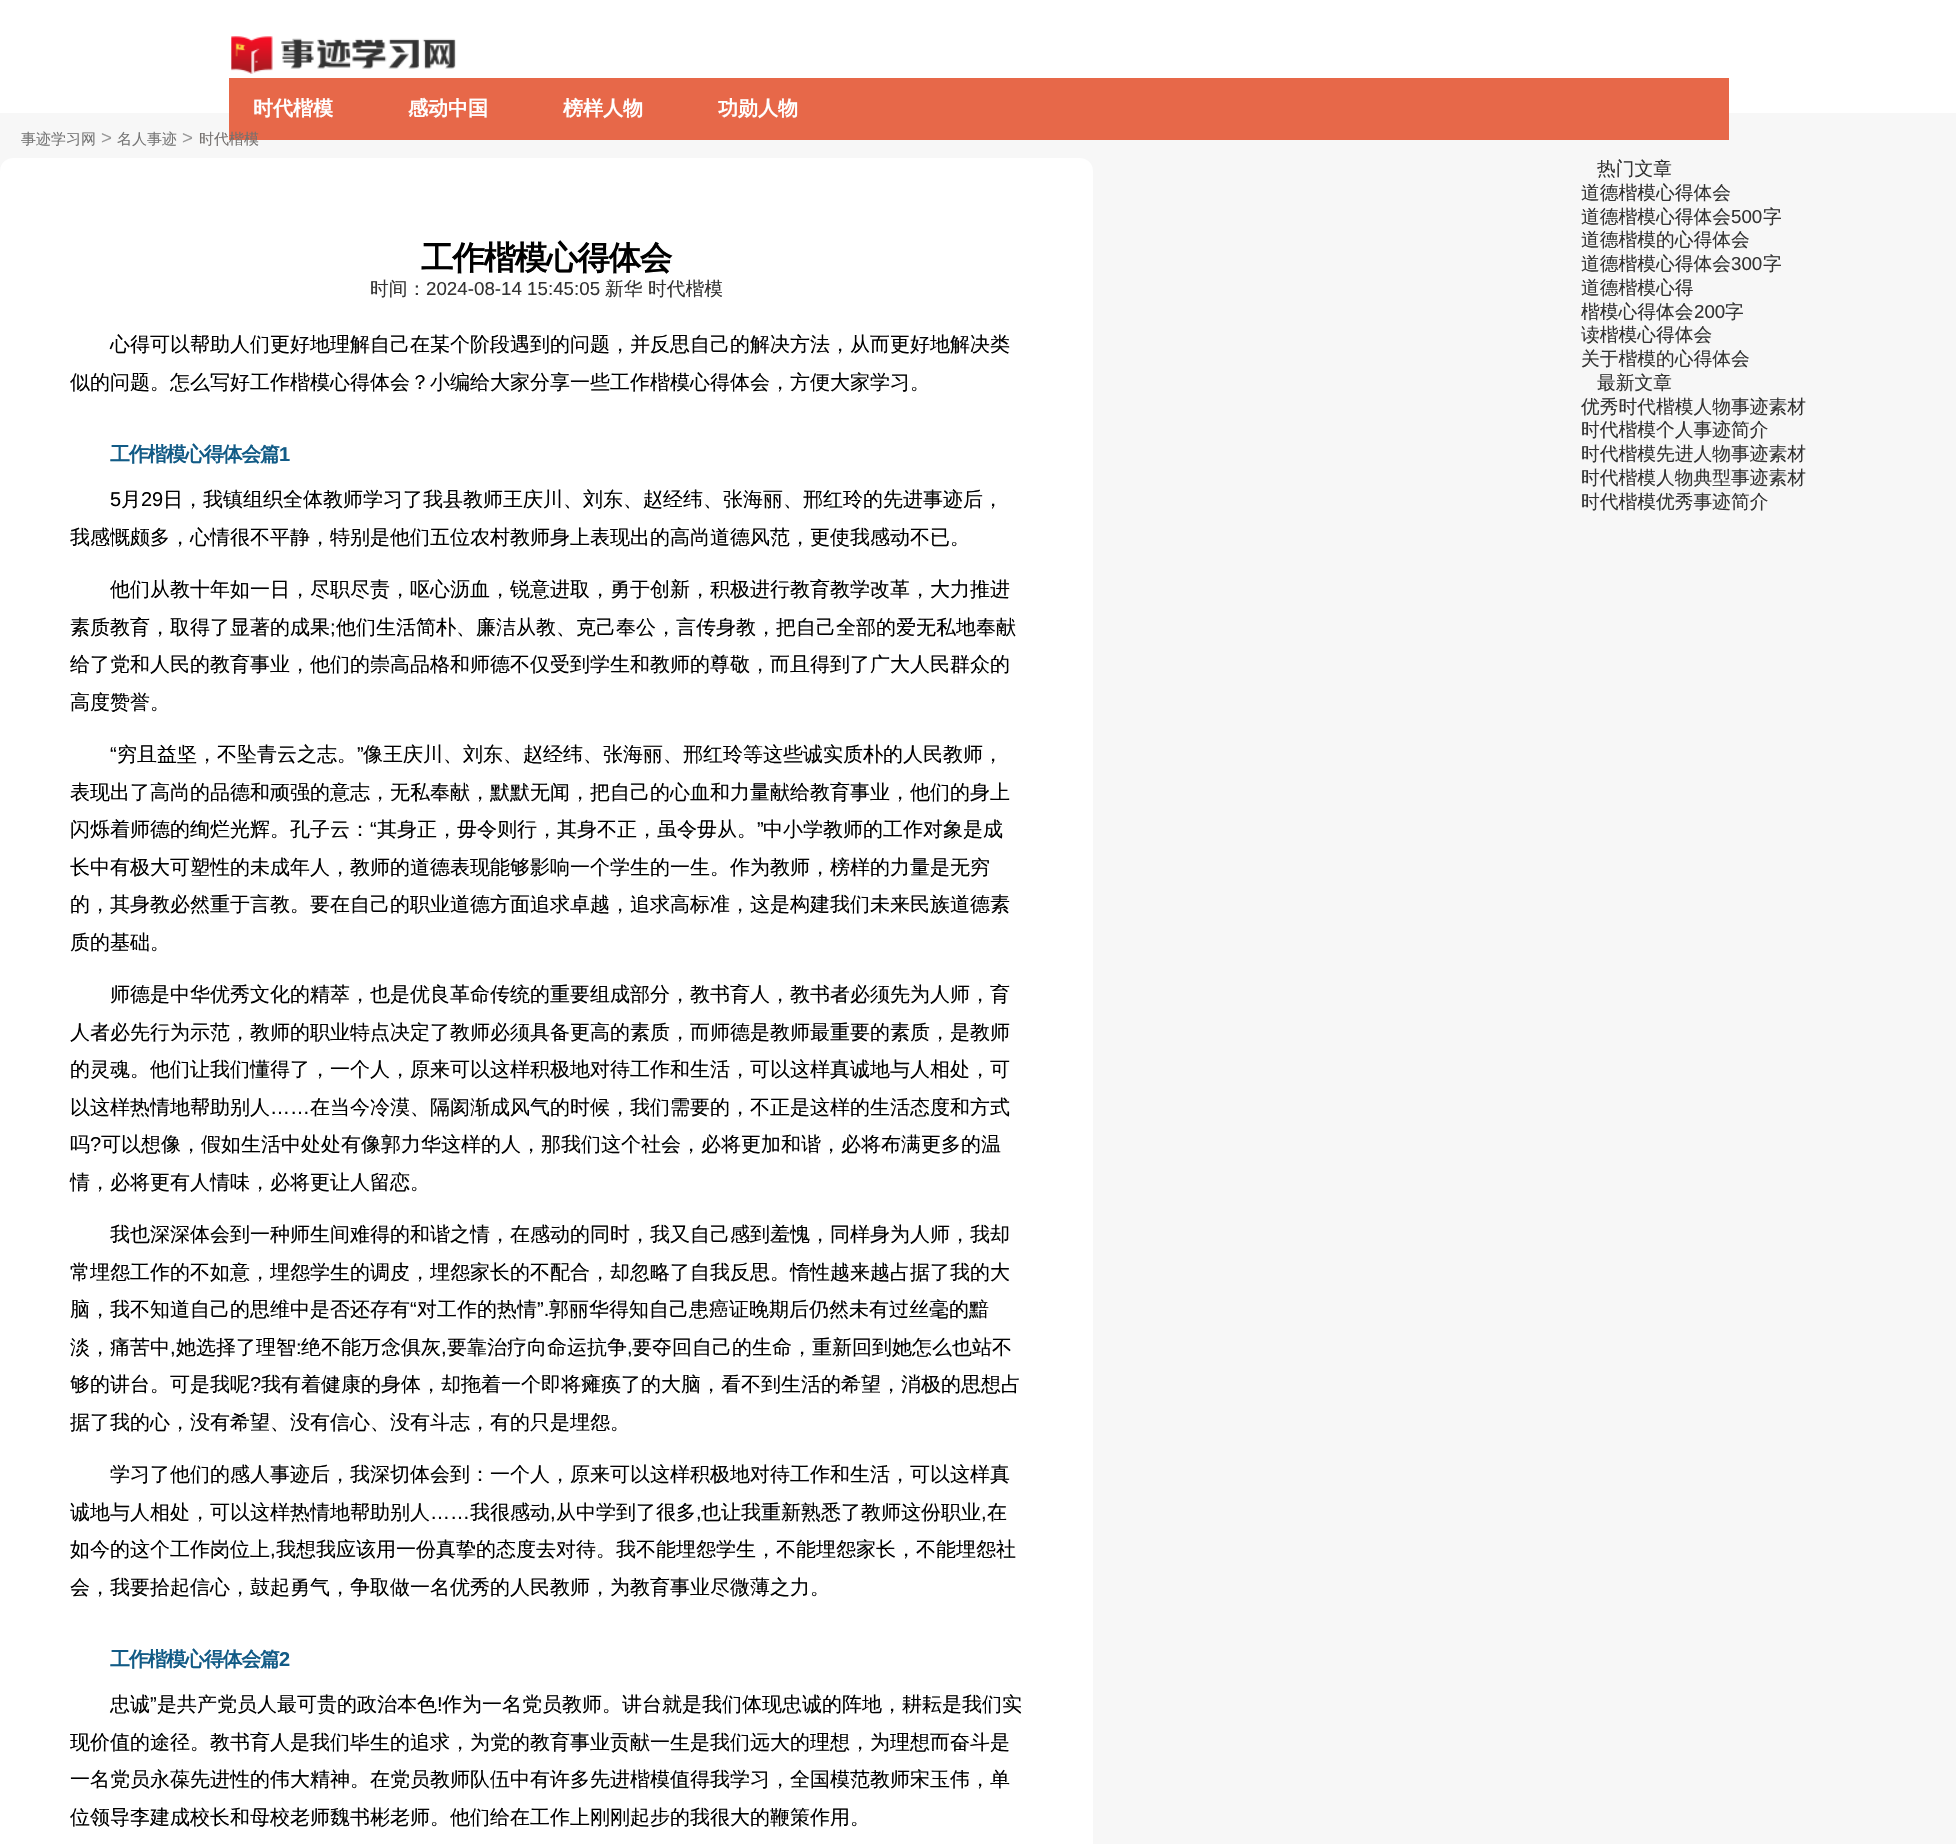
#include "include/core/SkBlurTypes.h"
#include "include/core/SkCanvas.h"
#include "include/core/SkData.h"
#include "include/core/SkFont.h"
#include "include/core/SkFontMgr.h"
#include "include/core/SkImage.h"
#include "include/core/SkMaskFilter.h"
#include "include/core/SkPaint.h"
#include "include/core/SkPathBuilder.h"
#include "include/core/SkTextBlob.h"
#include "include/effects/SkDashPathEffect.h"
#include "include/effects/SkGradientShader.h"
#include "include/utils/SkParsePath.h"

extern sk_sp<SkFontMgr> fontMgr;

void draw(SkCanvas* canvas) {
    SkPaint p;
    p.setAntiAlias(true);
    auto font = [&](const char* family, int weight, float size, bool italic = false) {
        SkFontStyle style(weight, SkFontStyle::kNormal_Width,
            italic ? SkFontStyle::kItalic_Slant : SkFontStyle::kUpright_Slant);
        SkFont result(fontMgr->matchFamilyStyle(family, style), size);
        result.setSubpixel(true);
        return result;
    };
    auto drawTracked = [&](const char* s, float x, float y, const SkFont& font, const SkPaint& ink, float letter, float word) {
        std::vector<SkGlyphID> glyphs(font.countText(s, strlen(s), SkTextEncoding::kUTF8));
        std::vector<float> xs(glyphs.size());
        font.textToGlyphs(s, strlen(s), SkTextEncoding::kUTF8, glyphs);
        font.getXPos(glyphs, xs, x);
        float extra = 0;
        for (size_t i = 0; i < glyphs.size(); i++) {
            xs[i] += extra;
            extra += letter + word * (glyphs[i] == font.unicharToGlyph(' '));
        }
        canvas->drawTextBlob(SkTextBlob::MakeFromPosHGlyphs(glyphs, xs, y, font), 0, 0, ink);
    };
    auto drawPhoto = [&](const char* path, float l, float t, float r, float b) {
        auto image = SkImages::DeferredFromEncodedData(SkData::MakeFromFileName(path));
        canvas->drawImageRect(image, SkRect::MakeLTRB(l, t, r, b), SkSamplingOptions());
    };
    canvas->clear(0xFFF7F7F7);
    p.setColor(0xFFFFFFFF);
    canvas->drawRect(SkRect::MakeLTRB(0, 0, 1956, 113), p);
    drawPhoto("media/1.png", 231, 36, 456, 74);
    p.setColor(0xFFE76849);
    canvas->drawRect(SkRect::MakeLTRB(229, 78, 1729, 140), p);
    auto font1 = font("WenQuanYi Zen Hei", 700, 20);
    p.setColor(0xFFFFFFFF);
    {
        const struct { const char* s; float x, y; } items[] = {
            {"时代楷模", 253, 115},
            {"感动中国", 408, 115},
            {"榜样人物", 563, 115},
            {"功勋人物", 718, 115},
        };
        for (auto [s, x, y] : items) {
            canvas->drawString(s, x, y, font1, p);
        }
    }
    auto font2 = font("WenQuanYi Zen Hei", 500, 15);
    p.setColor(0xFF757575);
    canvas->drawString("事迹学习网", 21, 144, font2, p);
    auto font3 = font("Liberation Sans", 400, 18.75f);
    p.setColor(0xFF999999);
    canvas->drawString(">", 101, 144, font3, p);
    p.setColor(0xFF757575);
    canvas->drawString("名人事迹", 117, 144, font2, p);
    p.setColor(0xFF999999);
    canvas->drawString(">", 182, 144, font3, p);
    p.setColor(0xFF74706E);
    canvas->drawString("时代楷模", 199, 144, font2, p);
    p.setColor(0xFFFFFFFF);
    canvas->drawRoundRect(SkRect::MakeLTRB(0, 158, 1093, 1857), 13, 13, p);
    auto font4 = font("WenQuanYi Zen Hei", 700, 32.5f);
    p.setColor(0xFF000000);
    drawTracked("工作楷模心得体会", 421, 269, font4, p, -1.25f, 0);
    auto font5 = font("WenQuanYi Zen Hei", 500, 18.75f);
    p.setColor(0xFF333333);
    canvas->drawString("时间：", 370, 295, font5, p);
    canvas->drawString("2024-08-14 15:45:05", 426, 295, font3, p);
    canvas->drawString("新华", 605, 295, font5, p);
    canvas->drawString("时代楷模", 648, 295, font5, p);
    auto font6 = font("WenQuanYi Zen Hei", 500, 20);
    p.setColor(0xFF000000);
    canvas->drawString("心得可以帮助人们更好地理解自己在某个阶段遇到的问题，并反思自己的解决方法，从而更好地解决类", 110, 351, font6, p);
    canvas->drawString("似的问题。怎么写好工作楷模心得体会？小编给大家分享一些工作楷模心得体会，方便大家学习。", 70, 389, font6, p);
    p.setColor(0xFF125B86);
    drawTracked("工作楷模心得体会篇", 110, 461, font1, p, -1.25f, 0);
    auto font7 = font("Liberation Sans", 700, 20);
    drawTracked("1", 279, 461, font7, p, -1.25f, 0);
    auto font8 = font("Liberation Sans", 400, 20);
    p.setColor(0xFF000000);
    canvas->drawString("5", 110, 506, font8, p);
    canvas->drawString("月", 121, 506, font6, p);
    canvas->drawString("29", 141, 506, font8, p);
    {
        const struct { const char* s; float x, y; } items[] = {
            {"日，我镇组织全体教师学习了我县教师王庆川、刘东、赵经纬、张海丽、邢红玲的先进事迹后，", 163, 506},
            {"我感慨颇多，心情很不平静，特别是他们五位农村教师身上表现出的高尚道德风范，更使我感动不已。", 70, 544},
            {"他们从教十年如一日，尽职尽责，呕心沥血，锐意进取，勇于创新，积极进行教育教学改革，大力推进", 110, 596},
            {"素质教育，取得了显著的成果", 70, 634},
        };
        for (auto [s, x, y] : items) {
            canvas->drawString(s, x, y, font6, p);
        }
    }
    canvas->drawString(";", 330, 634, font8, p);
    {
        const struct { const char* s; float x, y; } items[] = {
            {"他们生活简朴、廉洁从教、克己奉公，言传身教，把自己全部的爱无私地奉献", 336, 634},
            {"给了党和人民的教育事业，他们的崇高品格和师德不仅受到学生和教师的尊敬，而且得到了广大人民群众的", 70, 671},
            {"高度赞誉。", 70, 709},
        };
        for (auto [s, x, y] : items) {
            canvas->drawString(s, x, y, font6, p);
        }
    }
    canvas->drawString("“", 110, 761, font8, p);
    canvas->drawString("穷且益坚，不坠青云之志。", 117, 761, font6, p);
    canvas->drawString("”", 357, 761, font8, p);
    {
        const struct { const char* s; float x, y; } items[] = {
            {"像王庆川、刘东、赵经纬、张海丽、邢红玲等这些诚实质朴的人民教师，", 363, 761},
            {"表现出了高尚的品德和顽强的意志，无私奉献，默默无闻，把自己的心血和力量献给教育事业，他们的身上", 70, 799},
            {"闪烁着师德的绚烂光辉。孔子云：", 70, 836},
        };
        for (auto [s, x, y] : items) {
            canvas->drawString(s, x, y, font6, p);
        }
    }
    canvas->drawString("“", 370, 836, font8, p);
    canvas->drawString("其身正，毋令则行，其身不正，虽令毋从。", 377, 836, font6, p);
    canvas->drawString("”", 757, 836, font8, p);
    {
        const struct { const char* s; float x, y; } items[] = {
            {"中小学教师的工作对象是成", 763, 836},
            {"长中有极大可塑性的未成年人，教师的道德表现能够影响一个学生的一生。作为教师，榜样的力量是无穷", 70, 874},
            {"的，其身教必然重于言教。要在自己的职业道德方面追求卓越，追求高标准，这是构建我们未来民族道德素", 70, 911},
            {"质的基础。", 70, 949},
            {"师德是中华优秀文化的精萃，也是优良革命传统的重要组成部分，教书育人，教书者必须先为人师，育", 110, 1001},
            {"人者必先行为示范，教师的职业特点决定了教师必须具备更高的素质，而师德是教师最重要的素质，是教师", 70, 1039},
            {"的灵魂。他们让我们懂得了，一个人，原来可以这样积极地对待工作和生活，可以这样真诚地与人相处，可", 70, 1076},
            {"以这样热情地帮助别人", 70, 1114},
        };
        for (auto [s, x, y] : items) {
            canvas->drawString(s, x, y, font6, p);
        }
    }
    canvas->drawString("……", 270, 1114, font8, p);
    canvas->drawString("在当今冷漠、隔阂渐成风气的时候，我们需要的，不正是这样的生活态度和方式", 310, 1114, font6, p);
    canvas->drawString("吗", 70, 1151, font6, p);
    canvas->drawString("?", 90, 1151, font8, p);
    {
        const struct { const char* s; float x, y; } items[] = {
            {"可以想像，假如生活中处处有像郭力华这样的人，那我们这个社会，必将更加和谐，必将布满更多的温", 101, 1151},
            {"情，必将更有人情味，必将更让人留恋。", 70, 1189},
            {"我也深深体会到一种师生间难得的和谐之情，在感动的同时，我又自己感到羞愧，同样身为人师，我却", 110, 1241},
            {"常埋怨工作的不如意，埋怨学生的调皮，埋怨家长的不配合，却忽略了自我反思。惰性越来越占据了我的大", 70, 1279},
            {"脑，我不知道自己的思维中是否还存有", 70, 1316},
        };
        for (auto [s, x, y] : items) {
            canvas->drawString(s, x, y, font6, p);
        }
    }
    canvas->drawString("“", 410, 1316, font8, p);
    canvas->drawString("对工作的热情", 417, 1316, font6, p);
    canvas->drawString("”.", 537, 1316, font8, p);
    canvas->drawString("郭丽华得知自己患癌证晚期后仍然未有过丝毫的黯", 549, 1316, font6, p);
    canvas->drawString("淡，痛苦中", 70, 1354, font6, p);
    canvas->drawString(",", 170, 1354, font8, p);
    canvas->drawString("她选择了理智", 176, 1354, font6, p);
    canvas->drawString(":", 296, 1354, font8, p);
    canvas->drawString("绝不能万念俱灰", 301, 1354, font6, p);
    canvas->drawString(",", 441, 1354, font8, p);
    canvas->drawString("要靠治疗向命运抗争", 447, 1354, font6, p);
    canvas->drawString(",", 627, 1354, font8, p);
    canvas->drawString("要夺回自己的生命，重新回到她怎么也站不", 632, 1354, font6, p);
    canvas->drawString("够的讲台。可是我呢", 70, 1391, font6, p);
    canvas->drawString("?", 250, 1391, font8, p);
    {
        const struct { const char* s; float x, y; } items[] = {
            {"我有着健康的身体，却拖着一个即将瘫痪了的大脑，看不到生活的希望，消极的思想占", 261, 1391},
            {"据了我的心，没有希望、没有信心、没有斗志，有的只是埋怨。", 70, 1429},
            {"学习了他们的感人事迹后，我深切体会到：一个人，原来可以这样积极地对待工作和生活，可以这样真", 110, 1481},
            {"诚地与人相处，可以这样热情地帮助别人", 70, 1519},
        };
        for (auto [s, x, y] : items) {
            canvas->drawString(s, x, y, font6, p);
        }
    }
    canvas->drawString("……", 430, 1519, font8, p);
    canvas->drawString("我很感动", 470, 1519, font6, p);
    canvas->drawString(",", 550, 1519, font8, p);
    canvas->drawString("从中学到了很多", 556, 1519, font6, p);
    canvas->drawString(",", 696, 1519, font8, p);
    canvas->drawString("也让我重新熟悉了教师这份职业", 701, 1519, font6, p);
    canvas->drawString(",", 981, 1519, font8, p);
    canvas->drawString("在", 987, 1519, font6, p);
    canvas->drawString("如今的这个工作岗位上", 70, 1556, font6, p);
    canvas->drawString(",", 270, 1556, font8, p);
    canvas->drawString("我想我应该用一份真挚的态度去对待。我不能埋怨学生，不能埋怨家长，不能埋怨社", 276, 1556, font6, p);
    canvas->drawString("会，我要拾起信心，鼓起勇气，争取做一名优秀的人民教师，为教育事业尽微薄之力。", 70, 1594, font6, p);
    p.setColor(0xFF125B86);
    drawTracked("工作楷模心得体会篇", 110, 1666, font1, p, -1.25f, 0);
    drawTracked("2", 279, 1666, font7, p, -1.25f, 0);
    p.setColor(0xFF000000);
    canvas->drawString("忠诚", 110, 1711, font6, p);
    canvas->drawString("”", 150, 1711, font8, p);
    canvas->drawString("是共产党员人最可贵的政治本色", 157, 1711, font6, p);
    canvas->drawString("!", 437, 1711, font8, p);
    {
        const struct { const char* s; float x, y; } items[] = {
            {"作为一名党员教师。讲台就是我们体现忠诚的阵地，耕耘是我们实", 442, 1711},
            {"现价值的途径。教书育人是我们毕生的追求，为党的教育事业贡献一生是我们远大的理想，为理想而奋斗是", 70, 1749},
            {"一名党员永葆先进性的伟大精神。在党员教师队伍中有许多先进楷模值得我学习，全国模范教师宋玉伟，单", 70, 1786},
            {"位领导李建成校长和母校老师魏书彬老师。他们给在工作上刚刚起步的我很大的鞭策作用。", 70, 1824},
        };
        for (auto [s, x, y] : items) {
            canvas->drawString(s, x, y, font6, p);
        }
    }
    p.setColor(0xFF333333);
    {
        const struct { const char* s; float x, y; } items[] = {
            {"热门文章", 1597, 175},
            {"道德楷模心得体会", 1581, 199},
            {"道德楷模心得体会", 1581, 223},
        };
        for (auto [s, x, y] : items) {
            canvas->drawString(s, x, y, font5, p);
        }
    }
    canvas->drawString("500", 1731, 223, font3, p);
    {
        const struct { const char* s; float x, y; } items[] = {
            {"字", 1763, 223},
            {"道德楷模的心得体会", 1581, 246},
            {"道德楷模心得体会", 1581, 270},
        };
        for (auto [s, x, y] : items) {
            canvas->drawString(s, x, y, font5, p);
        }
    }
    canvas->drawString("300", 1731, 270, font3, p);
    {
        const struct { const char* s; float x, y; } items[] = {
            {"字", 1763, 270},
            {"道德楷模心得", 1581, 294},
            {"楷模心得体会", 1581, 318},
        };
        for (auto [s, x, y] : items) {
            canvas->drawString(s, x, y, font5, p);
        }
    }
    canvas->drawString("200", 1694, 318, font3, p);
    {
        const struct { const char* s; float x, y; } items[] = {
            {"字", 1725, 318},
            {"读楷模心得体会", 1581, 341},
            {"关于楷模的心得体会", 1581, 365},
            {"最新文章", 1597, 389},
            {"优秀时代楷模人物事迹素材", 1581, 413},
            {"时代楷模个人事迹简介", 1581, 436},
            {"时代楷模先进人物事迹素材", 1581, 460},
            {"时代楷模人物典型事迹素材", 1581, 484},
            {"时代楷模优秀事迹简介", 1581, 508},
        };
        for (auto [s, x, y] : items) {
            canvas->drawString(s, x, y, font5, p);
        }
    }
}
